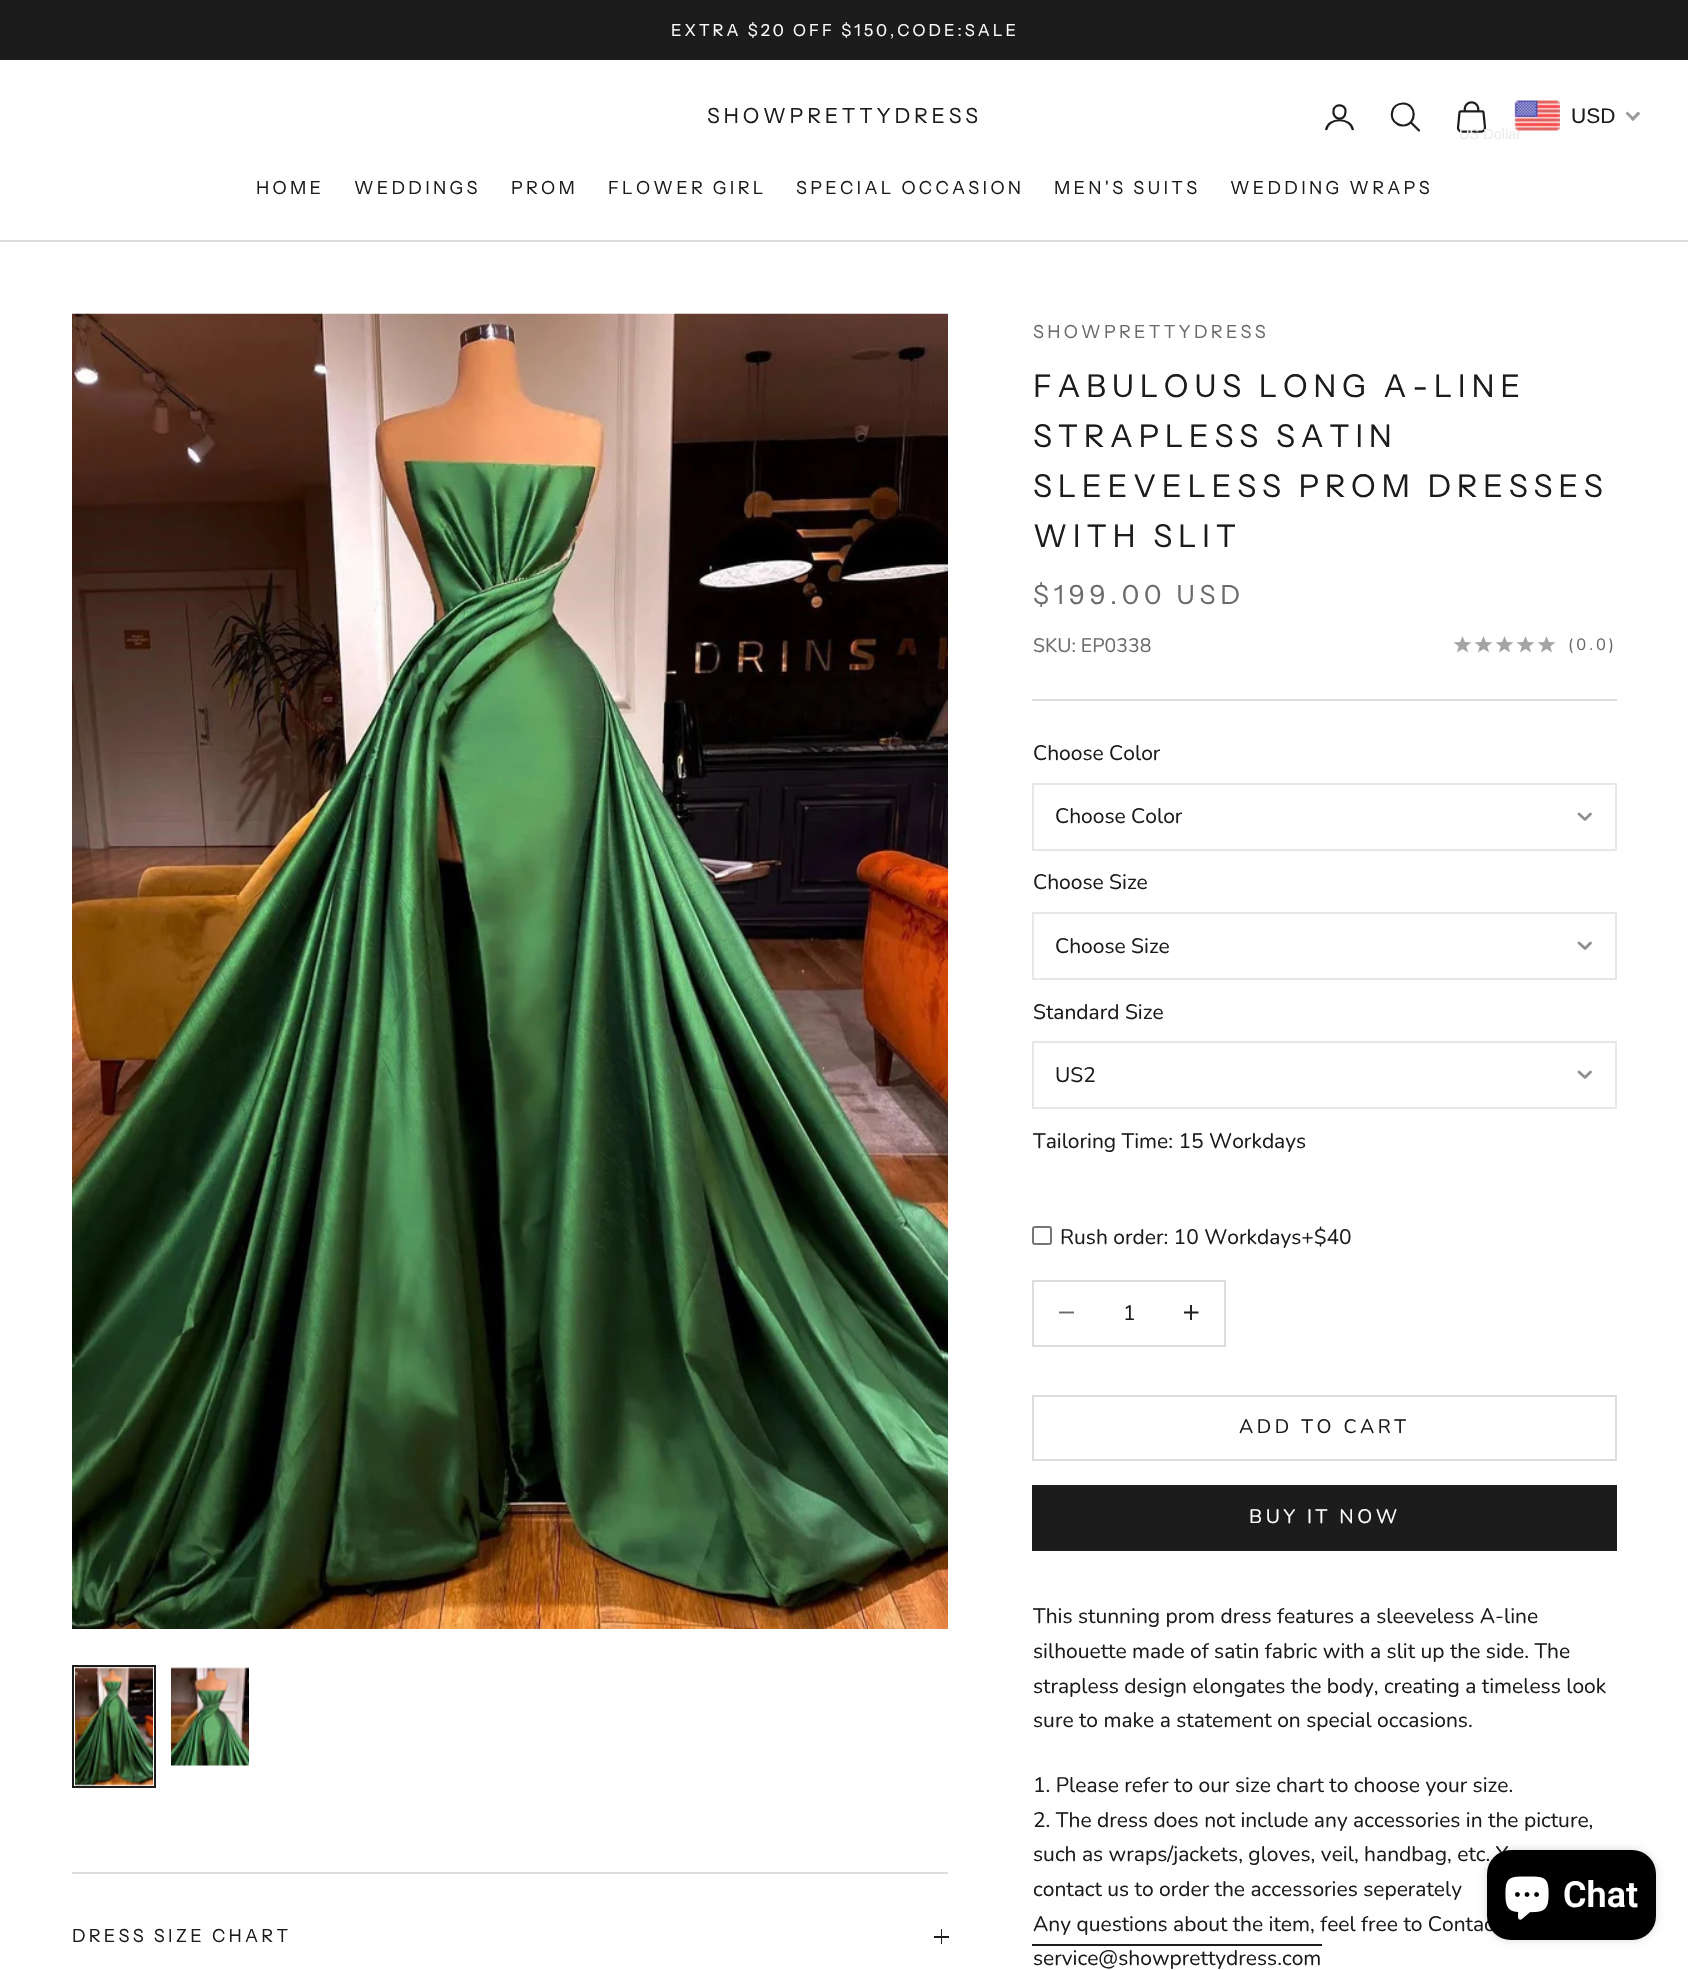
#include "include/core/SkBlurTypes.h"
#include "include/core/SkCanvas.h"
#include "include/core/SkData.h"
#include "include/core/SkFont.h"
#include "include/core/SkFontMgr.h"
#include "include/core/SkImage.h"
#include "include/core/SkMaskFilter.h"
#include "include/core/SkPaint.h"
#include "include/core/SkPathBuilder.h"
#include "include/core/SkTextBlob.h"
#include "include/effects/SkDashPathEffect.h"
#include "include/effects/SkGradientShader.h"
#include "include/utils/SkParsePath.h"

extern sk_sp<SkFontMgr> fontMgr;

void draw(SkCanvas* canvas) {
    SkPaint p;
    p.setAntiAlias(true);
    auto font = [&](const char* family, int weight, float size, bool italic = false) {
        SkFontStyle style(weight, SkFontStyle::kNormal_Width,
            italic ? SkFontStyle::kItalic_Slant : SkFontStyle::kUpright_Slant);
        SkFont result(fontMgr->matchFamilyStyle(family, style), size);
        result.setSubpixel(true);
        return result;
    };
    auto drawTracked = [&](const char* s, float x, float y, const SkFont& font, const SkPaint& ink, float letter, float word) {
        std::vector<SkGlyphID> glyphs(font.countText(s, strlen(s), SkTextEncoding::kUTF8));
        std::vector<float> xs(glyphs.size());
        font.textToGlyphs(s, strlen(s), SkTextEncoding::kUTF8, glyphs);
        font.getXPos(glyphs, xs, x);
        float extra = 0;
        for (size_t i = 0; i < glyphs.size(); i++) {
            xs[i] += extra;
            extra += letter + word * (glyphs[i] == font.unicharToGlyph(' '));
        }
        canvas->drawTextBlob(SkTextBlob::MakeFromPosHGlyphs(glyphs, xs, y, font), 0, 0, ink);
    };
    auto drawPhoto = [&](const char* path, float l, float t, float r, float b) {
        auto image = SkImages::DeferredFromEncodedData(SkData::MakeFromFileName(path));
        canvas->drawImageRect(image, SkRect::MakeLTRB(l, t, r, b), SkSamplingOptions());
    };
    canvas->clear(0xFFFFFFFF);
    p.setColor(0xFF1C1C1C);
    canvas->drawRect(SkRect::MakeLTRB(0, 0, 1688, 60), p);
    auto font1 = font("Instrument Sans", 400, 16.5f);
    p.setColor(0xFFFFFFFF);
    drawTracked("EXTRA $20 OFF $150,CODE:SALE", 671, 36, font1, p, 3, 0);
    p.setColor(0xFFDDDDDD);
    canvas->drawRect(SkRect::MakeLTRB(0, 240, 1688, 242), p);
    auto font2 = font("Instrument Sans", 400, 21);
    p.setColor(0xFF1C1C1C);
    drawTracked("SHOWPRETTYDRESS", 707, 123, font2, p, 3.75f, 0);
    p.setStyle(SkPaint::kStroke_Style);
    p.setStrokeWidth(2.2f);
    p.setStrokeCap(SkPaint::kRound_Cap);
    p.setStrokeJoin(SkPaint::kRound_Join);
    canvas->drawPath(SkPathBuilder().moveTo(1345.5f, 112).cubicTo(1345, 122, 1332, 120, 1333.5f, 110.5f).cubicTo(1334.5f, 103, 1346.5f, 104, 1345.5f, 112).close().detach(), p);
    p.setStrokeCap(SkPaint::kButt_Cap);
    p.setStrokeJoin(SkPaint::kMiter_Join);
    canvas->drawPath(SkPathBuilder().moveTo(1326, 130).cubicTo(1328.5f, 117, 1350.5f, 117, 1353, 130).detach(), p);
    canvas->drawPath(SkPathBuilder().moveTo(1403, 103.5f).cubicTo(1391.5f, 103.5f, 1387.5f, 118.5f, 1397.5f, 124).cubicTo(1399, 125, 1401, 125.5f, 1403, 125.5f).cubicTo(1417.5f, 125, 1417, 103.5f, 1403, 103.5f).close().detach(), p);
    p.setStrokeCap(SkPaint::kRound_Cap);
    canvas->drawPath(SkPathBuilder().moveTo(1411.5f, 123).lineTo(1419, 130.5f).detach(), p);
    drawPhoto("media/1.png", 1456, 101, 1487, 133);
    drawPhoto("media/2.png", 1514, 100, 1560, 131);
    auto font3 = font("Liberation Sans", 400, 21);
    p.setStyle(SkPaint::kFill_Style);
    canvas->drawString("USD", 1571, 123, font3, p);
    p.setColor(0xFF999999);
    canvas->drawPath(SkPathBuilder().moveTo(1638, 111.5f).lineTo(1640.5f, 113.5f).lineTo(1633, 121).lineTo(1631, 119).close().detach(), p);
    canvas->drawPath(SkPathBuilder().moveTo(1627.5f, 111.5f).lineTo(1635, 119).lineTo(1633, 121).lineTo(1625.5f, 113.5f).close().detach(), p);
    auto font4 = font("Liberation Sans", 400, 14.5f);
    p.setColor(0xFFEDEDED);
    canvas->drawString("US Dollar", 1459, 139, font4, p);
    auto font5 = font("Instrument Sans", 400, 18);
    p.setColor(0xFF1C1C1C);
    {
        const struct { const char* s; float x, y; } items[] = {
            {"HOME", 256, 194},
            {"WEDDINGS", 354, 194},
            {"PROM", 511, 194},
            {"FLOWER GIRL", 608, 194},
            {"SPECIAL OCCASION", 796, 194},
            {"MEN'S SUITS", 1054, 194},
            {"WEDDING WRAPS", 1230, 194},
        };
        for (auto [s, x, y] : items) {
            drawTracked(s, x, y, font5, p, 3.25f, 0);
        }
    }
    drawPhoto("media/3.png", 72, 313, 948, 1629);
    p.setStyle(SkPaint::kStroke_Style);
    p.setStrokeWidth(2);
    p.setStrokeCap(SkPaint::kButt_Cap);
    canvas->drawRect(SkRect::MakeLTRB(73, 1666, 155, 1787), p);
    drawPhoto("media/4.png", 75, 1667, 153, 1786);
    drawPhoto("media/5.png", 171, 1667, 249, 1766);
    p.setStyle(SkPaint::kFill_Style);
    p.setColor(0xFF6B6B6B);
    drawTracked("SHOWPRETTYDRESS", 1033, 338, font5, p, 3.25f, 0);
    auto font6 = font("Instrument Sans", 400, 31.4f);
    p.setColor(0xFF1C1C1C);
    {
        const struct { const char* s; float x, y; } items[] = {
            {"FABULOUS LONG A-LINE", 1033, 397},
            {"STRAPLESS SATIN", 1033, 447},
            {"SLEEVELESS PROM DRESSES", 1033, 497},
            {"WITH SLIT", 1033, 547},
        };
        for (auto [s, x, y] : items) {
            drawTracked(s, x, y, font6, p, 5.65f, 0);
        }
    }
    auto font7 = font("Instrument Sans", 400, 26.25f);
    p.setColor(0xFF6B6B6B);
    drawTracked("$199.00 USD", 1033, 604, font7, p, 4.75f, 0);
    auto font8 = font("Nunito", 400, 19.5f);
    canvas->drawString("SKU: EP0338", 1033, 652, font8, p);
    drawPhoto("media/6.png", 1454, 636, 1472, 653);
    drawPhoto("media/6.png", 1475, 636, 1493, 653);
    drawPhoto("media/6.png", 1496, 636, 1514, 653);
    drawPhoto("media/6.png", 1517, 636, 1535, 653);
    drawPhoto("media/6.png", 1538, 636, 1556, 653);
    auto font9 = font("Nunito", 400, 16.5f);
    drawTracked("(0.0)", 1568, 650, font9, p, 3, 0);
    p.setColor(0xFFDDDDDD);
    canvas->drawRect(SkRect::MakeLTRB(1032, 699, 1617, 701), p);
    auto font10 = font("Nunito", 400, 21);
    p.setColor(0xFF1C1C1C);
    canvas->drawString("Choose Color", 1033, 760, font10, p);
    p.setStyle(SkPaint::kStroke_Style);
    p.setStrokeWidth(2.8f);
    p.setStrokeCap(SkPaint::kRound_Cap);
    p.setStrokeJoin(SkPaint::kRound_Join);
    p.setColor(0xFF8F8F8F);
    canvas->drawPath(SkPathBuilder().moveTo(1590.5f, 814).lineTo(1585, 819.5f).lineTo(1579, 814).detach(), p);
    p.setStrokeWidth(2);
    p.setStrokeCap(SkPaint::kButt_Cap);
    p.setStrokeJoin(SkPaint::kMiter_Join);
    p.setColor(0xFFE7E7E7);
    canvas->drawRect(SkRect::MakeLTRB(1033, 784, 1616, 850), p);
    p.setStyle(SkPaint::kFill_Style);
    p.setColor(0xFF1C1C1C);
    canvas->drawString("Choose Color", 1055, 823, font10, p);
    canvas->drawString("Choose Size", 1033, 889, font10, p);
    p.setStyle(SkPaint::kStroke_Style);
    p.setStrokeWidth(2.8f);
    p.setStrokeCap(SkPaint::kRound_Cap);
    p.setStrokeJoin(SkPaint::kRound_Join);
    p.setColor(0xFF8F8F8F);
    canvas->drawPath(SkPathBuilder().moveTo(1590.5f, 943).lineTo(1585, 948.5f).lineTo(1579, 943).detach(), p);
    p.setStrokeWidth(2);
    p.setStrokeCap(SkPaint::kButt_Cap);
    p.setStrokeJoin(SkPaint::kMiter_Join);
    p.setColor(0xFFE7E7E7);
    canvas->drawRect(SkRect::MakeLTRB(1033, 913, 1616, 979), p);
    p.setStyle(SkPaint::kFill_Style);
    p.setColor(0xFF1C1C1C);
    canvas->drawString("Choose Size", 1055, 953, font10, p);
    canvas->drawString("Standard Size", 1033, 1019, font10, p);
    p.setStyle(SkPaint::kStroke_Style);
    p.setStrokeWidth(2.8f);
    p.setStrokeCap(SkPaint::kRound_Cap);
    p.setStrokeJoin(SkPaint::kRound_Join);
    p.setColor(0xFF8F8F8F);
    canvas->drawPath(SkPathBuilder().moveTo(1590.5f, 1072).lineTo(1585, 1077.5f).lineTo(1579, 1072).detach(), p);
    p.setStrokeWidth(2);
    p.setStrokeCap(SkPaint::kButt_Cap);
    p.setStrokeJoin(SkPaint::kMiter_Join);
    p.setColor(0xFFE7E7E7);
    canvas->drawRect(SkRect::MakeLTRB(1033, 1042, 1616, 1108), p);
    p.setStyle(SkPaint::kFill_Style);
    p.setColor(0xFF1C1C1C);
    canvas->drawString("US2", 1055, 1082, font10, p);
    canvas->drawString("Tailoring Time: 15 Workdays", 1033, 1148, font10, p);
    p.setStyle(SkPaint::kStroke_Style);
    p.setColor(0xFF767676);
    canvas->drawRoundRect(SkRect::MakeLTRB(1033, 1227, 1051, 1244), 2, 2, p);
    p.setStyle(SkPaint::kFill_Style);
    p.setColor(0xFF1C1C1C);
    canvas->drawString("Rush order: 10 Workdays+$40", 1060, 1244, font10, p);
    p.setStyle(SkPaint::kStroke_Style);
    p.setColor(0xFFDDDDDD);
    canvas->drawRect(SkRect::MakeLTRB(1033, 1281, 1225, 1346), p);
    p.setStrokeWidth(1.9f);
    p.setColor(0xFF6B6B6B);
    canvas->drawPath(SkPathBuilder().moveTo(1059, 1312.5f).lineTo(1074, 1312.5f).detach(), p);
    p.setStyle(SkPaint::kFill_Style);
    p.setColor(0xFF1C1C1C);
    canvas->drawString("1", 1123, 1320, font10, p);
    canvas->save();
    canvas->clipRect(SkRect::MakeLTRB(1184, 1305, 1199, 1320));
    p.setStyle(SkPaint::kStroke_Style);
    canvas->drawPath(SkPathBuilder().moveTo(1191, 1305).lineTo(1191, 1320).moveTo(1183.5f, 1312.5f).lineTo(1198.5f, 1312.5f).detach(), p);
    canvas->restore();
    p.setStrokeWidth(2);
    p.setColor(0xFFDDDDDD);
    canvas->drawRect(SkRect::MakeLTRB(1033, 1396, 1616, 1460), p);
    p.setStyle(SkPaint::kFill_Style);
    p.setColor(0xFF1C1C1C);
    drawTracked("ADD TO CART", 1239, 1433, font8, p, 3.5f, 0);
    canvas->drawRect(SkRect::MakeLTRB(1033, 1486, 1616, 1550), p);
    p.setStyle(SkPaint::kStroke_Style);
    canvas->drawRect(SkRect::MakeLTRB(1033, 1486, 1616, 1550), p);
    p.setStyle(SkPaint::kFill_Style);
    p.setColor(0xFFFFFFFF);
    drawTracked("BUY IT NOW", 1249, 1523, font8, p, 3.5f, 0);
    p.setColor(0xFF1C1C1C);
    {
        const struct { const char* s; float x, y; } items[] = {
            {"This stunning prom dress features a sleeveless A-line", 1033, 1623},
            {"silhouette made of satin fabric with a slit up the side. The", 1033, 1658},
            {"strapless design elongates the body, creating a timeless look", 1033, 1693},
            {"sure to make a statement on special occasions.", 1033, 1727},
            {"1. Please refer to our size chart to choose your size.", 1033, 1792},
            {"2. The dress does not include any accessories in the picture,", 1033, 1827},
            {"such as wraps/jackets, gloves, veil, handbag, etc. Y", 1033, 1861},
            {"contact us to order the accessories seperately", 1033, 1896},
            {"Any questions about the item, feel free to Contac", 1033, 1931},
            {"service@showprettydress.com", 1033, 1965},
        };
        for (auto [s, x, y] : items) {
            canvas->drawString(s, x, y, font10, p);
        }
    }
    canvas->drawRect(SkRect::MakeLTRB(1032, 1944, 1322, 1946), p);
    p.setColor(0xFFDDDDDD);
    canvas->drawRect(SkRect::MakeLTRB(72, 1872, 948, 1874), p);
    p.setColor(0xFF1C1C1C);
    drawTracked("DRESS SIZE CHART", 72, 1942, font5, p, 3.25f, 0);
    canvas->drawRect(SkRect::MakeLTRB(941, 1929, 942, 1944), p);
    canvas->drawRect(SkRect::MakeLTRB(934, 1936, 949, 1938), p);
    p.setColor(0x26000000);
    p.setMaskFilter(SkMaskFilter::MakeBlur(kNormal_SkBlurStyle, 4));
    canvas->drawRoundRect(SkRect::MakeLTRB(1487, 1850, 1656, 1940), 24, 24, p);
    p.setMaskFilter(nullptr);
    p.setColor(0xFF000000);
    canvas->drawRoundRect(SkRect::MakeLTRB(1487, 1850, 1656, 1940), 24, 24, p);
    drawPhoto("media/7.png", 1505, 1876, 1549, 1920);
    auto font11 = font("Roboto", 600, 36);
    p.setColor(0xFFFFFFFF);
    canvas->drawString("Chat", 1563, 1907, font11, p);
}
